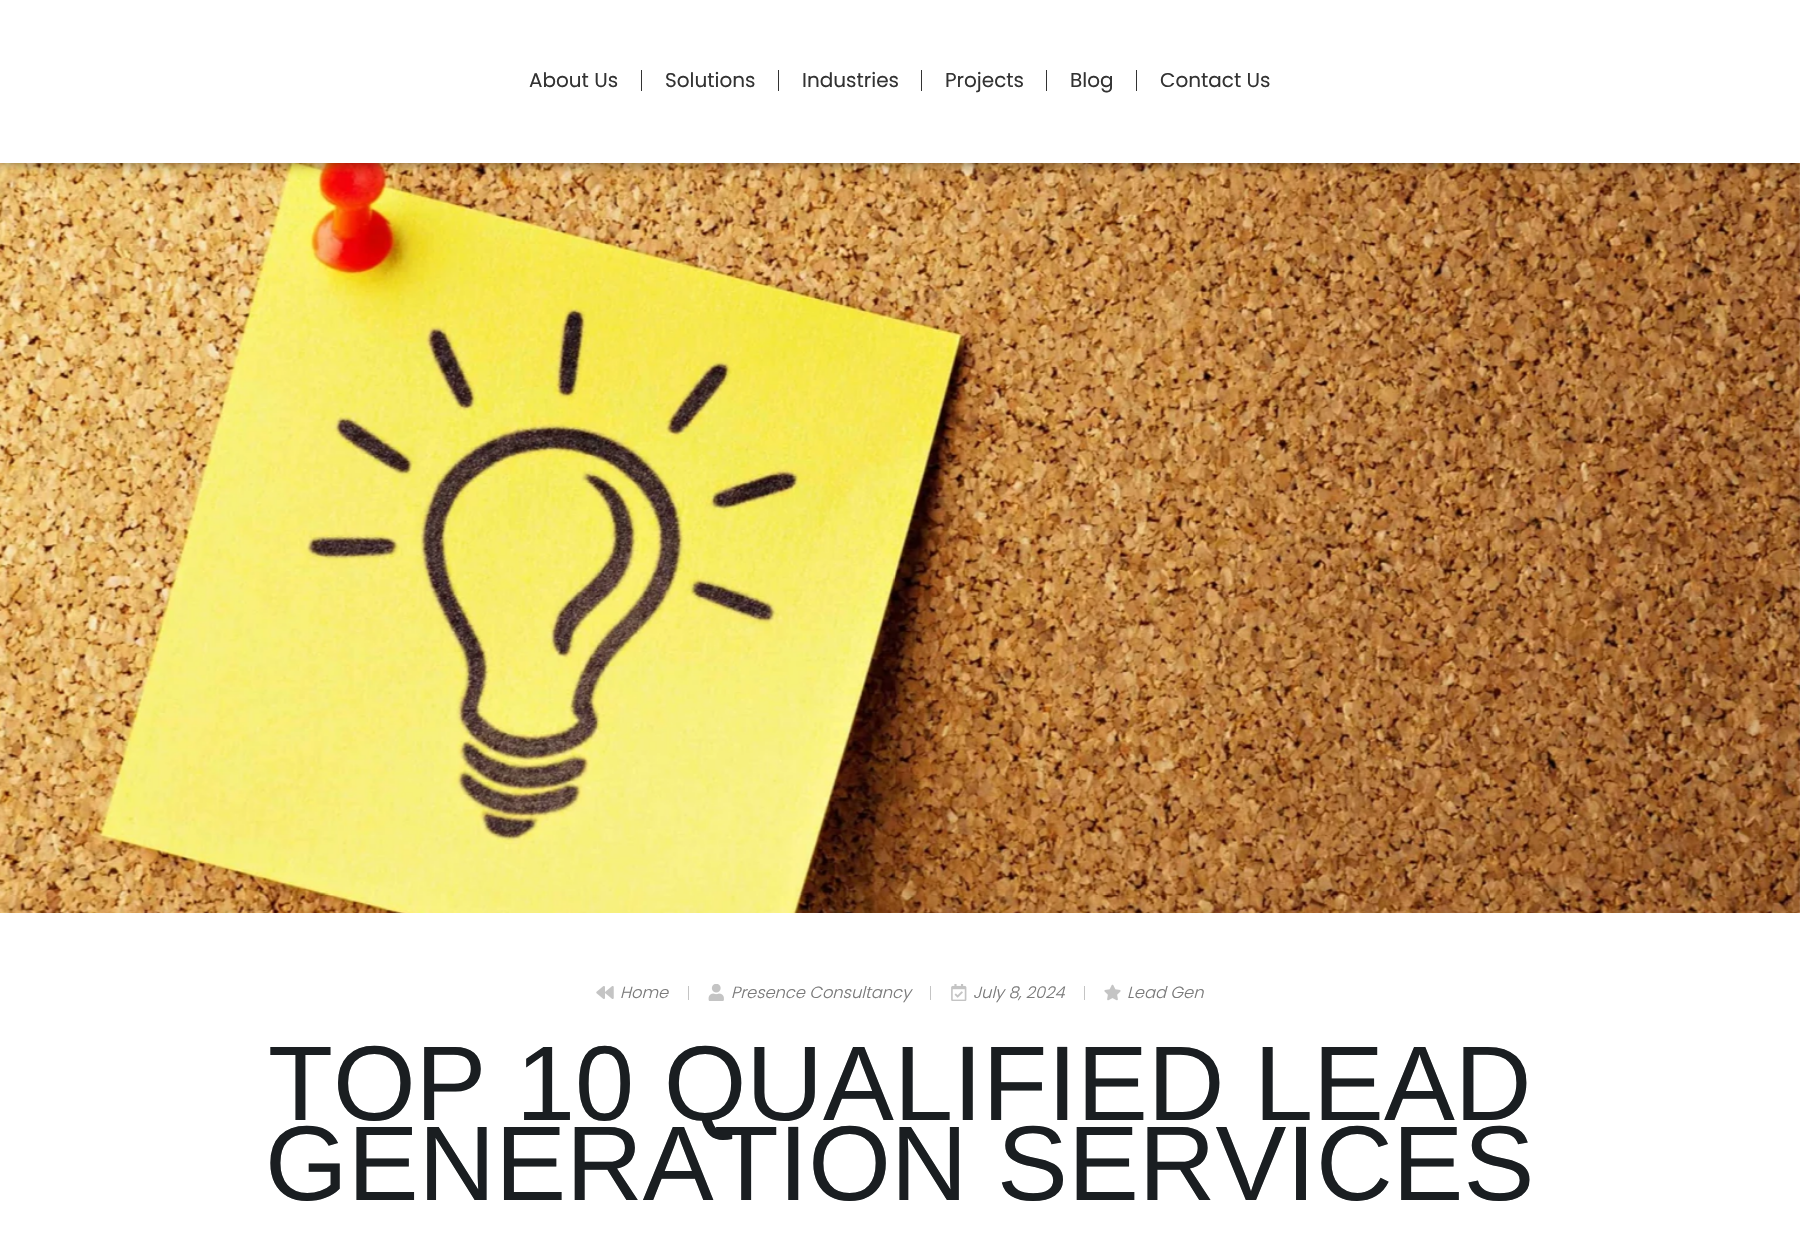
#include "include/core/SkBlurTypes.h"
#include "include/core/SkCanvas.h"
#include "include/core/SkData.h"
#include "include/core/SkFont.h"
#include "include/core/SkFontMgr.h"
#include "include/core/SkImage.h"
#include "include/core/SkMaskFilter.h"
#include "include/core/SkPaint.h"
#include "include/core/SkPathBuilder.h"
#include "include/core/SkTextBlob.h"
#include "include/effects/SkDashPathEffect.h"
#include "include/effects/SkGradientShader.h"
#include "include/utils/SkParsePath.h"

extern sk_sp<SkFontMgr> fontMgr;

void draw(SkCanvas* canvas) {
    SkPaint p;
    p.setAntiAlias(true);
    auto font = [&](const char* family, int weight, float size, bool italic = false) {
        SkFontStyle style(weight, SkFontStyle::kNormal_Width,
            italic ? SkFontStyle::kItalic_Slant : SkFontStyle::kUpright_Slant);
        SkFont result(fontMgr->matchFamilyStyle(family, style), size);
        result.setSubpixel(true);
        return result;
    };
    auto drawPhoto = [&](const char* path, float l, float t, float r, float b) {
        auto image = SkImages::DeferredFromEncodedData(SkData::MakeFromFileName(path));
        canvas->drawImageRect(image, SkRect::MakeLTRB(l, t, r, b), SkSamplingOptions());
    };
    canvas->clear(0xFFFFFFFF);
    drawPhoto("media/1.png", 0, 163, 1800, 913);
    p.setColor(0x80000000);
    p.setMaskFilter(SkMaskFilter::MakeBlur(kNormal_SkBlurStyle, 6));
    canvas->drawRect(SkRect::MakeLTRB(0, 0, 1800, 163), p);
    p.setMaskFilter(nullptr);
    p.setColor(0xFFFFFFFF);
    canvas->drawRect(SkRect::MakeLTRB(0, 0, 1800, 163), p);
    auto font1 = font("Poppins", 400, 20);
    p.setColor(0xFF333333);
    canvas->drawString("About Us", 529, 87, font1, p);
    canvas->drawRect(SkRect::MakeLTRB(641, 70, 642, 91), p);
    canvas->drawString("Solutions", 665, 87, font1, p);
    canvas->drawRect(SkRect::MakeLTRB(778, 70, 779, 91), p);
    canvas->drawString("Industries", 802, 87, font1, p);
    canvas->drawRect(SkRect::MakeLTRB(921, 70, 922, 91), p);
    canvas->drawString("Projects", 945, 87, font1, p);
    canvas->drawRect(SkRect::MakeLTRB(1046, 70, 1047, 91), p);
    canvas->drawString("Blog", 1070, 87, font1, p);
    canvas->drawRect(SkRect::MakeLTRB(1136, 70, 1137, 91), p);
    canvas->drawString("Contact Us", 1160, 87, font1, p);
    drawPhoto("media/2.png", 596, 986, 614, 999);
    auto font2 = font("Poppins", 300, 16.25f, true);
    p.setColor(0xFF7A7A7A);
    canvas->drawString("Home", 620, 998, font2, p);
    p.setColor(0xFFC4C4C4);
    canvas->drawRect(SkRect::MakeLTRB(688, 986, 689, 1000), p);
    drawPhoto("media/3.png", 708, 984, 724, 1001);
    p.setColor(0xFF7A7A7A);
    canvas->drawString("Presence Consultancy", 731, 998, font2, p);
    p.setColor(0xFFC4C4C4);
    canvas->drawRect(SkRect::MakeLTRB(930, 986, 931, 1000), p);
    drawPhoto("media/4.png", 951, 984, 967, 1001);
    p.setColor(0xFF7A7A7A);
    canvas->drawString("July 8, 2024", 973, 998, font2, p);
    p.setColor(0xFFC4C4C4);
    canvas->drawRect(SkRect::MakeLTRB(1084, 986, 1085, 1000), p);
    drawPhoto("media/5.png", 1104, 984, 1121, 1001);
    p.setColor(0xFF7A7A7A);
    canvas->drawString("Lead Gen", 1127, 998, font2, p);
    auto font3 = font("Liberation Sans", 400, 106.25f);
    p.setColor(0xFF1A1E21);
    canvas->drawString("TOP 10 QUALIFIED LEAD", 268, 1120, font3, p);
    canvas->drawString("GENERATION SERVICES", 265, 1200, font3, p);
}
